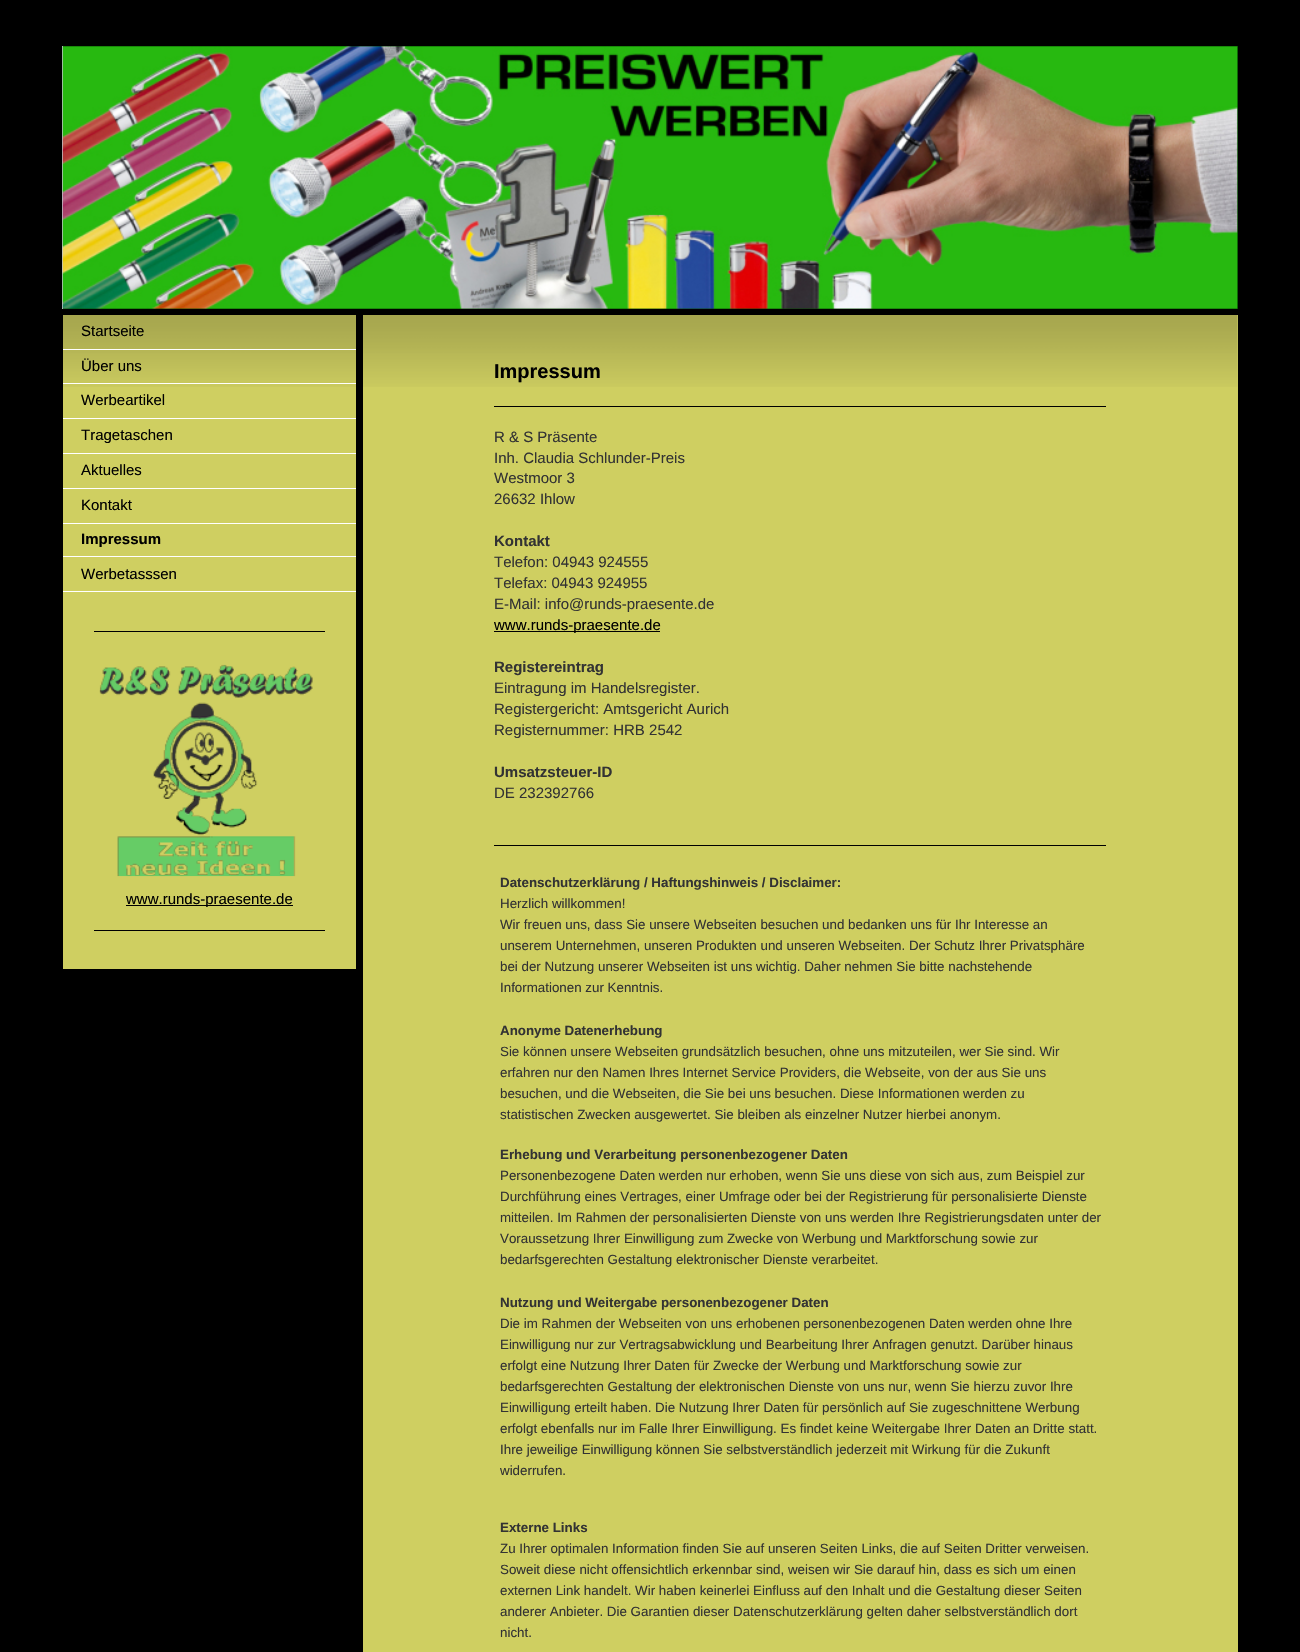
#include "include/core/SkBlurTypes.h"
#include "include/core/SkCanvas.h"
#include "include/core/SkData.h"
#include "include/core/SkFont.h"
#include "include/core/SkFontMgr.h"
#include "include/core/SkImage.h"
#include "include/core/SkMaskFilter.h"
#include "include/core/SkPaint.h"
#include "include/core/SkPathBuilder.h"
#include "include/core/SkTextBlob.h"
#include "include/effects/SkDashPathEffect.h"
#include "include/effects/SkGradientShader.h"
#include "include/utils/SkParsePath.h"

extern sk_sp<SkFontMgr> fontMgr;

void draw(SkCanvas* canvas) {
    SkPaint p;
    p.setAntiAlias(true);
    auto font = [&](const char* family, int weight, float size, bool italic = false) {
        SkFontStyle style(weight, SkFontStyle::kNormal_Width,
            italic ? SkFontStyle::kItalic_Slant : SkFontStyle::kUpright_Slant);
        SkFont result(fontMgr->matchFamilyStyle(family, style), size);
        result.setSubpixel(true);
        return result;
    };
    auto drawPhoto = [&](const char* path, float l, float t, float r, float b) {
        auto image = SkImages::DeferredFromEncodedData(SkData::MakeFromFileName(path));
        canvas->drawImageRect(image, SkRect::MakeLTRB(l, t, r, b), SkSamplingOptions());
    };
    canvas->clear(0xFF000000);
    p.setColor(0xFFC0C4CB);
    canvas->drawRect(SkRect::MakeLTRB(62, 46, 63, 309), p);
    p.setColor(0xFF084E02);
    canvas->drawRect(SkRect::MakeLTRB(63, 46, 1238, 309), p);
    drawPhoto("media/1.png", 62, 46, 1238, 309);
    p.setColor(0xFFCFCF61);
    canvas->drawRect(SkRect::MakeLTRB(63, 315, 356, 969), p);
    drawPhoto("media/2.png", 63, 315, 356, 387);
    p.setColor(0xFFFFFFFF);
    canvas->drawRect(SkRect::MakeLTRB(63, 349, 356, 350), p);
    auto font1 = font("Liberation Sans", 400, 15);
    p.setColor(0xFF000000);
    canvas->drawString("Startseite", 81, 336, font1, p);
    p.setColor(0xFFFFFFFF);
    canvas->drawRect(SkRect::MakeLTRB(63, 383, 356, 384), p);
    p.setColor(0xFF000000);
    canvas->drawString("Über uns", 81, 371, font1, p);
    p.setColor(0xFFFFFFFF);
    canvas->drawRect(SkRect::MakeLTRB(63, 418, 356, 419), p);
    p.setColor(0xFF000000);
    canvas->drawString("Werbeartikel", 81, 405, font1, p);
    p.setColor(0xFFFFFFFF);
    canvas->drawRect(SkRect::MakeLTRB(63, 453, 356, 454), p);
    p.setColor(0xFF000000);
    canvas->drawString("Tragetaschen", 81, 440, font1, p);
    p.setColor(0xFFFFFFFF);
    canvas->drawRect(SkRect::MakeLTRB(63, 488, 356, 489), p);
    p.setColor(0xFF000000);
    canvas->drawString("Aktuelles", 81, 475, font1, p);
    p.setColor(0xFFFFFFFF);
    canvas->drawRect(SkRect::MakeLTRB(63, 523, 356, 524), p);
    p.setColor(0xFF000000);
    canvas->drawString("Kontakt", 81, 510, font1, p);
    p.setColor(0xFFFFFFFF);
    canvas->drawRect(SkRect::MakeLTRB(63, 556, 356, 557), p);
    auto font2 = font("Liberation Sans", 700, 15);
    p.setColor(0xFF000000);
    canvas->drawString("Impressum", 81, 544, font2, p);
    p.setColor(0xFFFFFFFF);
    canvas->drawRect(SkRect::MakeLTRB(63, 591, 356, 592), p);
    p.setColor(0xFF000000);
    canvas->drawString("Werbetasssen", 81, 579, font1, p);
    canvas->drawRect(SkRect::MakeLTRB(94, 631, 325, 632), p);
    drawPhoto("media/3.png", 99, 664, 313, 877);
    canvas->drawRect(SkRect::MakeLTRB(126, 905, 293, 906), p);
    canvas->drawString("www.runds-praesente.de", 126, 904, font1, p);
    canvas->drawRect(SkRect::MakeLTRB(94, 930, 325, 931), p);
    p.setColor(0xFFCFCF61);
    canvas->drawRect(SkRect::MakeLTRB(363, 315, 1238, 1652), p);
    drawPhoto("media/4.png", 363, 315, 1238, 387);
    auto font3 = font("Liberation Sans", 700, 20);
    p.setColor(0xFF000000);
    canvas->drawString("Impressum", 494, 378, font3, p);
    canvas->drawRect(SkRect::MakeLTRB(494, 406, 1106, 407), p);
    p.setColor(0xFF333333);
    {
        const struct { const char* s; float x, y; } items[] = {
            {"R & S Präsente", 494, 442},
            {"Inh. Claudia Schlunder-Preis", 494, 463},
            {"Westmoor 3", 494, 483},
            {"26632 Ihlow", 494, 504},
        };
        for (auto [s, x, y] : items) {
            canvas->drawString(s, x, y, font1, p);
        }
    }
    canvas->drawString("Kontakt", 494, 546, font2, p);
    {
        const struct { const char* s; float x, y; } items[] = {
            {"Telefon: 04943 924555", 494, 567},
            {"Telefax: 04943 924955", 494, 588},
            {"E-Mail: info@runds-praesente.de", 494, 609},
        };
        for (auto [s, x, y] : items) {
            canvas->drawString(s, x, y, font1, p);
        }
    }
    p.setColor(0xFF000000);
    canvas->drawRect(SkRect::MakeLTRB(494, 631, 660, 632), p);
    canvas->drawString("www.runds-praesente.de", 494, 630, font1, p);
    p.setColor(0xFF333333);
    canvas->drawString("Registereintrag", 494, 672, font2, p);
    {
        const struct { const char* s; float x, y; } items[] = {
            {"Eintragung im Handelsregister.", 494, 693},
            {"Registergericht: Amtsgericht Aurich", 494, 714},
            {"Registernummer: HRB 2542", 494, 735},
        };
        for (auto [s, x, y] : items) {
            canvas->drawString(s, x, y, font1, p);
        }
    }
    canvas->drawString("Umsatzsteuer-ID", 494, 777, font2, p);
    canvas->drawString("DE 232392766", 494, 798, font1, p);
    p.setColor(0xFF000000);
    canvas->drawRect(SkRect::MakeLTRB(494, 845, 1106, 846), p);
    auto font4 = font("Liberation Sans", 700, 13.35f);
    p.setColor(0xFF333333);
    canvas->drawString("Datenschutzerklärung / Haftungshinweis / Disclaimer:", 500, 887, font4, p);
    auto font5 = font("Liberation Sans", 400, 13.35f);
    {
        const struct { const char* s; float x, y; } items[] = {
            {"Herzlich willkommen!", 500, 908},
            {"Wir freuen uns, dass Sie unsere Webseiten besuchen und bedanken uns für Ihr Interesse an", 500, 929},
            {"unserem Unternehmen, unseren Produkten und unseren Webseiten. Der Schutz Ihrer Privatsphäre", 500, 950},
            {"bei der Nutzung unserer Webseiten ist uns wichtig. Daher nehmen Sie bitte nachstehende", 500, 971},
            {"Informationen zur Kenntnis.", 500, 992},
        };
        for (auto [s, x, y] : items) {
            canvas->drawString(s, x, y, font5, p);
        }
    }
    canvas->drawString("Anonyme Datenerhebung", 500, 1035, font4, p);
    {
        const struct { const char* s; float x, y; } items[] = {
            {"Sie können unsere Webseiten grundsätzlich besuchen, ohne uns mitzuteilen, wer Sie sind. Wir", 500, 1056},
            {"erfahren nur den Namen Ihres Internet Service Providers, die Webseite, von der aus Sie uns", 500, 1077},
            {"besuchen, und die Webseiten, die Sie bei uns besuchen. Diese Informationen werden zu", 500, 1098},
            {"statistischen Zwecken ausgewertet. Sie bleiben als einzelner Nutzer hierbei anonym.", 500, 1119},
        };
        for (auto [s, x, y] : items) {
            canvas->drawString(s, x, y, font5, p);
        }
    }
    canvas->drawString("Erhebung und Verarbeitung personenbezogener Daten", 500, 1159, font4, p);
    {
        const struct { const char* s; float x, y; } items[] = {
            {"Personenbezogene Daten werden nur erhoben, wenn Sie uns diese von sich aus, zum Beispiel zur", 500, 1180},
            {"Durchführung eines Vertrages, einer Umfrage oder bei der Registrierung für personalisierte Dienste", 500, 1201},
            {"mitteilen. Im Rahmen der personalisierten Dienste von uns werden Ihre Registrierungsdaten unter der", 500, 1222},
            {"Voraussetzung Ihrer Einwilligung zum Zwecke von Werbung und Marktforschung sowie zur", 500, 1243},
            {"bedarfsgerechten Gestaltung elektronischer Dienste verarbeitet.", 500, 1264},
        };
        for (auto [s, x, y] : items) {
            canvas->drawString(s, x, y, font5, p);
        }
    }
    canvas->drawString("Nutzung und Weitergabe personenbezogener Daten", 500, 1307, font4, p);
    {
        const struct { const char* s; float x, y; } items[] = {
            {"Die im Rahmen der Webseiten von uns erhobenen personenbezogenen Daten werden ohne Ihre", 500, 1328},
            {"Einwilligung nur zur Vertragsabwicklung und Bearbeitung Ihrer Anfragen genutzt. Darüber hinaus", 500, 1349},
            {"erfolgt eine Nutzung Ihrer Daten für Zwecke der Werbung und Marktforschung sowie zur", 500, 1370},
            {"bedarfsgerechten Gestaltung der elektronischen Dienste von uns nur, wenn Sie hierzu zuvor Ihre", 500, 1391},
            {"Einwilligung erteilt haben. Die Nutzung Ihrer Daten für persönlich auf Sie zugeschnittene Werbung", 500, 1412},
            {"erfolgt ebenfalls nur im Falle Ihrer Einwilligung. Es findet keine Weitergabe Ihrer Daten an Dritte statt.", 500, 1433},
            {"Ihre jeweilige Einwilligung können Sie selbstverständlich jederzeit mit Wirkung für die Zukunft", 500, 1454},
            {"widerrufen.", 500, 1475},
        };
        for (auto [s, x, y] : items) {
            canvas->drawString(s, x, y, font5, p);
        }
    }
    canvas->drawString("Externe Links", 500, 1532, font4, p);
    {
        const struct { const char* s; float x, y; } items[] = {
            {"Zu Ihrer optimalen Information finden Sie auf unseren Seiten Links, die auf Seiten Dritter verweisen.", 500, 1553},
            {"Soweit diese nicht offensichtlich erkennbar sind, weisen wir Sie darauf hin, dass es sich um einen", 500, 1574},
            {"externen Link handelt. Wir haben keinerlei Einfluss auf den Inhalt und die Gestaltung dieser Seiten", 500, 1595},
            {"anderer Anbieter. Die Garantien dieser Datenschutzerklärung gelten daher selbstverständlich dort", 500, 1616},
            {"nicht.", 500, 1637},
        };
        for (auto [s, x, y] : items) {
            canvas->drawString(s, x, y, font5, p);
        }
    }
}
